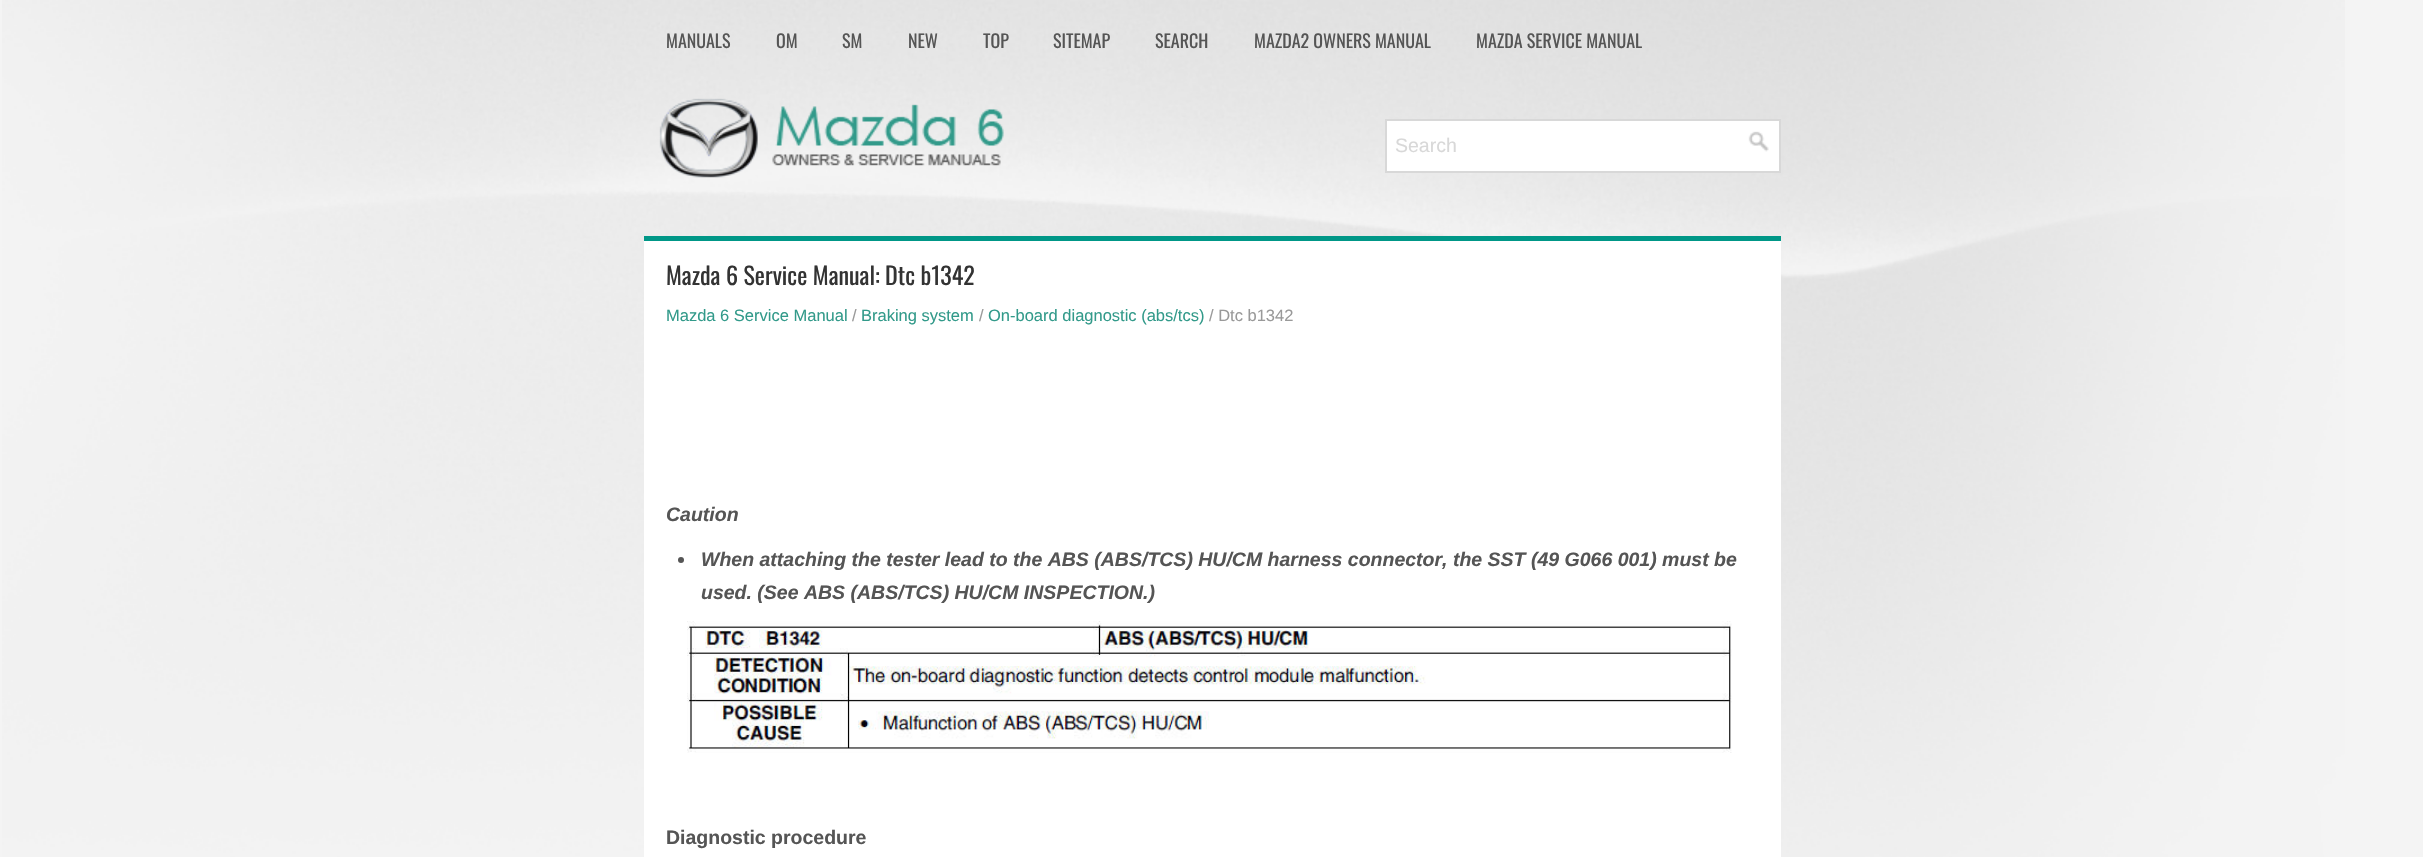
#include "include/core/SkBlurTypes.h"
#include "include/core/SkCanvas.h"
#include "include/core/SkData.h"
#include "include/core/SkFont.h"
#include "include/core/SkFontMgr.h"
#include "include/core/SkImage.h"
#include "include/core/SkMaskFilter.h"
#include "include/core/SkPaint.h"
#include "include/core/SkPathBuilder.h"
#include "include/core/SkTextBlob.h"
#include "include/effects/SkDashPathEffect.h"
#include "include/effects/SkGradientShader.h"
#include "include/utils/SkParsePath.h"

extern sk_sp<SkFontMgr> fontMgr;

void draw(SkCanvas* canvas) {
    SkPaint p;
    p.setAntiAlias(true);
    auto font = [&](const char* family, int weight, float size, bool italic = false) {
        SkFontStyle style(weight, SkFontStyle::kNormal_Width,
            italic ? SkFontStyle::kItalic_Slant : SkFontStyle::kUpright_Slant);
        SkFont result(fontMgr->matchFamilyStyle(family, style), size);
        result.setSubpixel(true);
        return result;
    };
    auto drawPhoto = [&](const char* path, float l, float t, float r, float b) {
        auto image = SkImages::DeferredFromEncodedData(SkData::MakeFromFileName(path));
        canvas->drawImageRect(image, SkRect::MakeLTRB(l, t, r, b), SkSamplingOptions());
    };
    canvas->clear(0xFFF4F4F4);
    drawPhoto("media/1.png", 2, 0, 2345, 857);
    auto font1 = font("Oswald", 400, 18);
    p.setColor(0xFF555555);
    {
        const struct { const char* s; float x, y; } items[] = {
            {"MANUALS", 666, 48},
            {"OM", 776, 48},
            {"SM", 842, 48},
            {"NEW", 908, 48},
            {"TOP", 983, 48},
            {"SITEMAP", 1053, 48},
            {"SEARCH", 1155, 48},
            {"MAZDA2 OWNERS MANUAL", 1254, 48},
            {"MAZDA SERVICE MANUAL", 1476, 48},
        };
        for (auto [s, x, y] : items) {
            canvas->drawString(s, x, y, font1, p);
        }
    }
    drawPhoto("media/2.png", 659, 98, 1004, 178);
    p.setColor(0xFFFFFFFF);
    canvas->drawRect(SkRect::MakeLTRB(1386, 120, 1780, 172), p);
    p.setStyle(SkPaint::kStroke_Style);
    p.setStrokeWidth(2);
    p.setColor(0xFFD8D8D8);
    canvas->drawRect(SkRect::MakeLTRB(1386, 120, 1780, 172), p);
    auto font2 = font("Liberation Sans", 400, 19.5f);
    p.setStyle(SkPaint::kFill_Style);
    canvas->drawString("Search", 1395, 152, font2, p);
    drawPhoto("media/3.png", 1748, 131, 1769, 152);
    p.setColor(0xFFFFFFFF);
    canvas->drawRect(SkRect::MakeLTRB(644, 241, 1781, 857), p);
    p.setColor(0xFF009787);
    canvas->drawRect(SkRect::MakeLTRB(644, 236, 1781, 241), p);
    auto font3 = font("Oswald", 400, 24);
    p.setColor(0xFF333333);
    canvas->drawString("Mazda 6 Service Manual: Dtc b1342", 666, 285, font3, p);
    auto font4 = font("Liberation Sans", 400, 16.5f);
    p.setColor(0xFF329A8A);
    canvas->drawString("Mazda 6 Service Manual", 666, 321, font4, p);
    p.setColor(0xFF999999);
    canvas->drawString("/", 852, 321, font4, p);
    p.setColor(0xFF329A8A);
    canvas->drawString("Braking system", 861, 321, font4, p);
    p.setColor(0xFF999999);
    canvas->drawString("/", 979, 321, font4, p);
    p.setColor(0xFF329A8A);
    canvas->drawString("On-board diagnostic (abs/tcs)", 988, 321, font4, p);
    p.setColor(0xFF999999);
    canvas->drawString("/ Dtc b1342", 1209, 321, font4, p);
    auto font5 = font("Liberation Sans", 700, 19.5f, true);
    p.setColor(0xFF555555);
    canvas->drawString("Caution", 666, 521, font5, p);
    canvas->drawCircle(681, 560, 3, p);
    canvas->drawString("When attaching the tester lead to the ABS (ABS/TCS) HU/CM harness connector, the SST (49 G066 001) must be", 701, 566, font5, p);
    canvas->drawString("used. (See ABS (ABS/TCS) HU/CM INSPECTION.)", 701, 599, font5, p);
    drawPhoto("media/4.png", 687, 621, 1732, 753);
    auto font6 = font("Liberation Sans", 700, 19.5f);
    canvas->drawString("Diagnostic procedure", 666, 844, font6, p);
}
